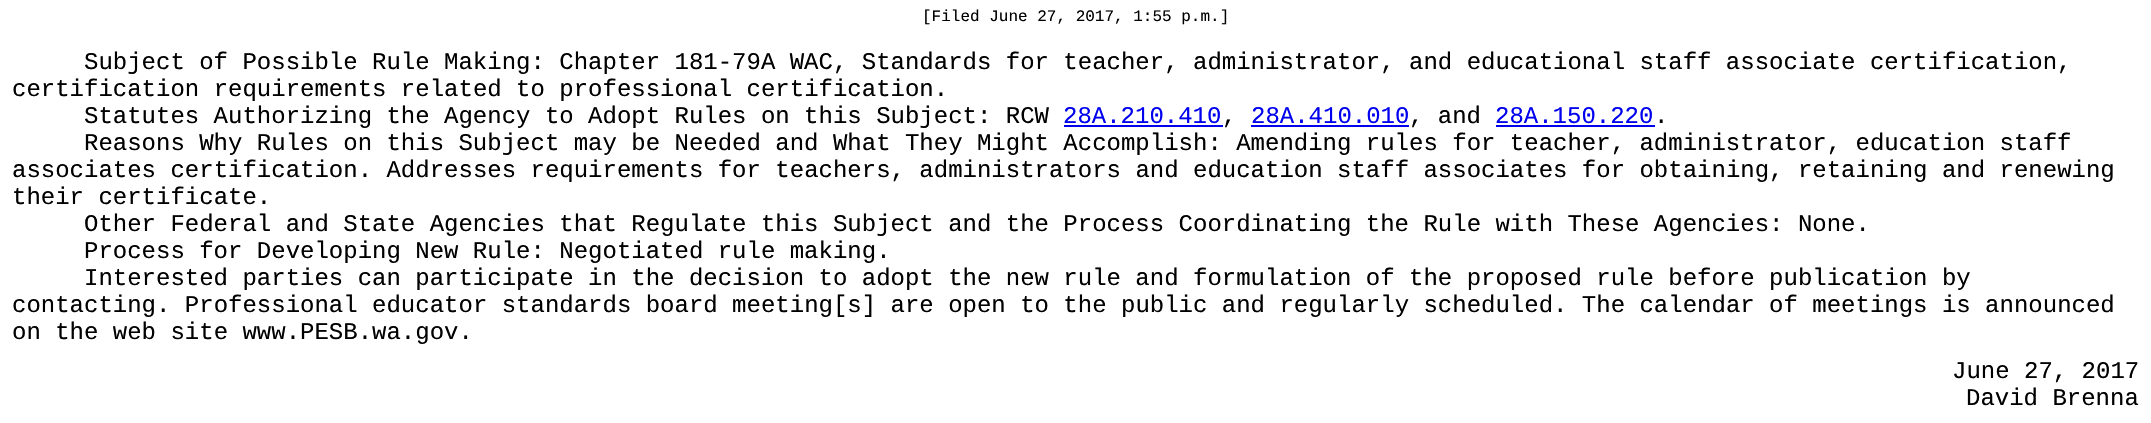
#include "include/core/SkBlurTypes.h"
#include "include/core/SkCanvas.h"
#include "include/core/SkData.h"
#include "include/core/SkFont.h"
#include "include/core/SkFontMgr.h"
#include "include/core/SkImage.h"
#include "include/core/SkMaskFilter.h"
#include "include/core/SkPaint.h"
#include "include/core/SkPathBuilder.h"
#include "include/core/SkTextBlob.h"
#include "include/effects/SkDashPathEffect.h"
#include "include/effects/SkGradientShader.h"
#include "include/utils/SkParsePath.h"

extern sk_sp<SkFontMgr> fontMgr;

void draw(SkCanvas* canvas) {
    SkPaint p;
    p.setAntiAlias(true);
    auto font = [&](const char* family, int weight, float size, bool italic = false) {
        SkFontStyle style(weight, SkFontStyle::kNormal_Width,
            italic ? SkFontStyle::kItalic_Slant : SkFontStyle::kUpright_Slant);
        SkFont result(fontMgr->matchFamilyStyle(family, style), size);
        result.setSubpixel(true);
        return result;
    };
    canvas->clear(0xFFFFFFFF);
    auto font1 = font("Liberation Mono", 400, 16);
    p.setColor(0xFF000000);
    canvas->drawString("[Filed June 27, 2017, 1:55 p.m.]", 922, 21, font1, p);
    auto font2 = font("Liberation Mono", 400, 24);
    {
        const struct { const char* s; float x, y; } items[] = {
            {"Subject of Possible Rule Making: Chapter 181-79A WAC, Standards for teacher, administrator, and educational staff associate certification,", 84, 69},
            {"certification requirements related to professional certification.", 12, 96},
            {"Statutes Authorizing the Agency to Adopt Rules on this Subject: RCW", 84, 123},
        };
        for (auto [s, x, y] : items) {
            canvas->drawString(s, x, y, font2, p);
        }
    }
    p.setColor(0xFF0000EE);
    canvas->drawString("28A.210.410", 1063, 123, font2, p);
    canvas->drawRect(SkRect::MakeLTRB(1064, 125, 1223, 127), p);
    p.setColor(0xFF000000);
    canvas->drawString(",", 1222, 123, font2, p);
    p.setColor(0xFF0000EE);
    canvas->drawString("28A.410.010", 1251, 123, font2, p);
    canvas->drawRect(SkRect::MakeLTRB(1251, 125, 1409, 127), p);
    p.setColor(0xFF000000);
    canvas->drawString(", and", 1409, 123, font2, p);
    p.setColor(0xFF0000EE);
    canvas->drawString("28A.150.220", 1495, 123, font2, p);
    canvas->drawRect(SkRect::MakeLTRB(1496, 125, 1655, 127), p);
    p.setColor(0xFF000000);
    {
        const struct { const char* s; float x, y; } items[] = {
            {".", 1654, 123},
            {"Reasons Why Rules on this Subject may be Needed and What They Might Accomplish: Amending rules for teacher, administrator, education staff", 84, 150},
            {"associates certification. Addresses requirements for teachers, administrators and education staff associates for obtaining, retaining and renewing", 12, 177},
            {"their certificate.", 12, 204},
            {"Other Federal and State Agencies that Regulate this Subject and the Process Coordinating the Rule with These Agencies: None.", 84, 231},
            {"Process for Developing New Rule: Negotiated rule making.", 84, 258},
            {"Interested parties can participate in the decision to adopt the new rule and formulation of the proposed rule before publication by", 84, 285},
            {"contacting. Professional educator standards board meeting[s] are open to the public and regularly scheduled. The calendar of meetings is announced", 12, 312},
            {"on the web site www.PESB.wa.gov.", 12, 339},
            {"June 27, 2017", 1952, 378},
            {"David Brenna", 1966, 405},
        };
        for (auto [s, x, y] : items) {
            canvas->drawString(s, x, y, font2, p);
        }
    }
}
